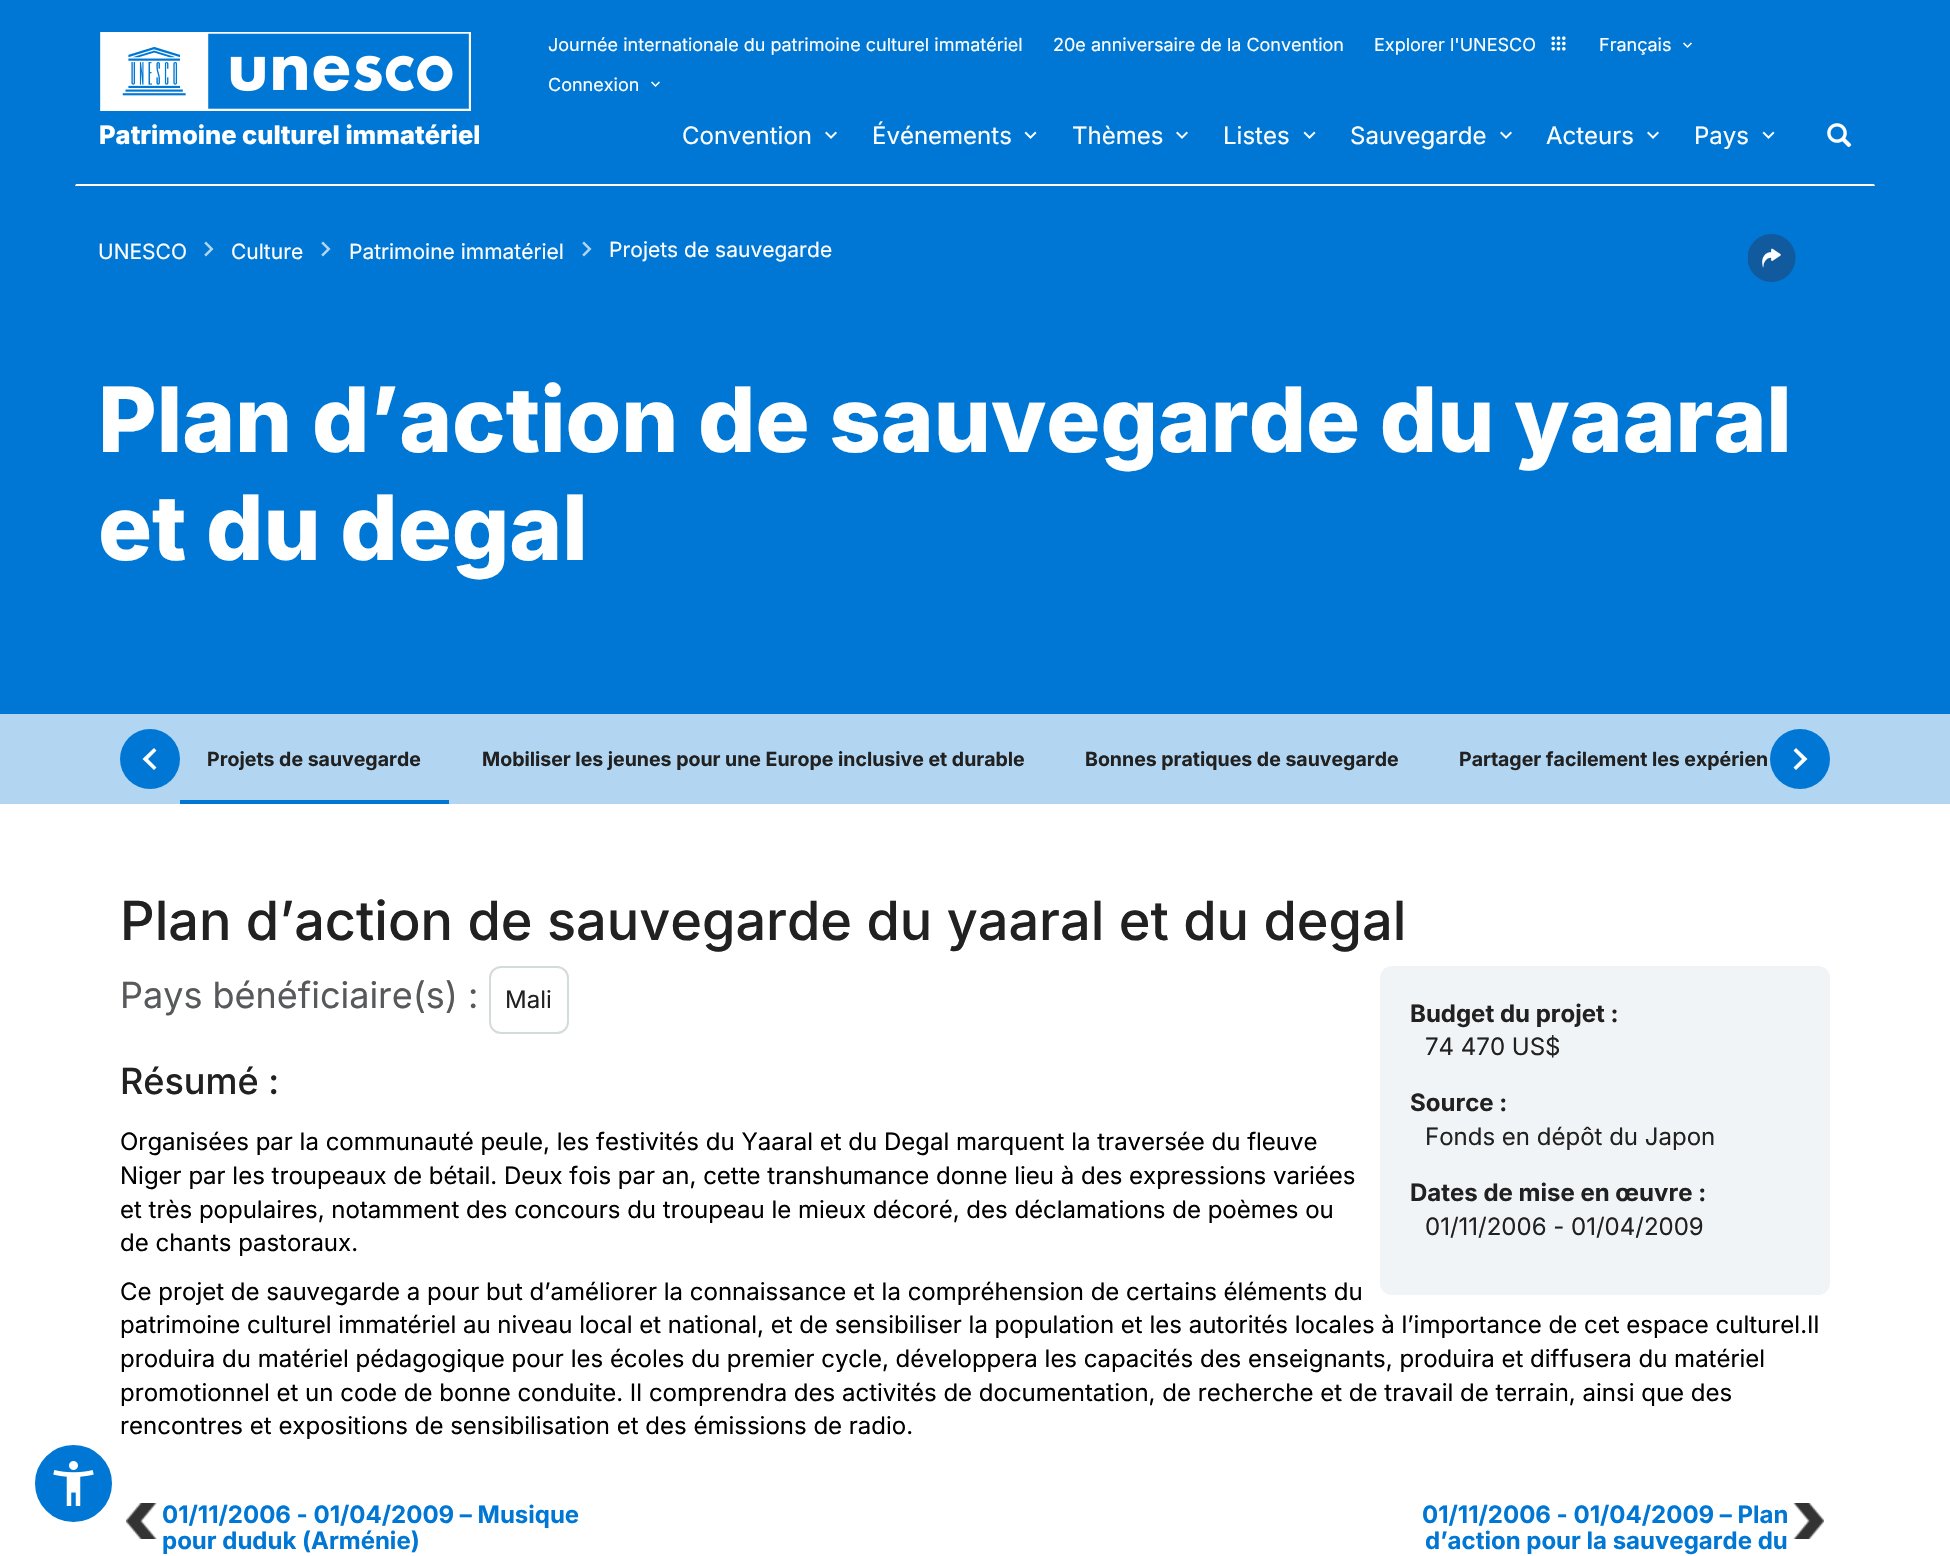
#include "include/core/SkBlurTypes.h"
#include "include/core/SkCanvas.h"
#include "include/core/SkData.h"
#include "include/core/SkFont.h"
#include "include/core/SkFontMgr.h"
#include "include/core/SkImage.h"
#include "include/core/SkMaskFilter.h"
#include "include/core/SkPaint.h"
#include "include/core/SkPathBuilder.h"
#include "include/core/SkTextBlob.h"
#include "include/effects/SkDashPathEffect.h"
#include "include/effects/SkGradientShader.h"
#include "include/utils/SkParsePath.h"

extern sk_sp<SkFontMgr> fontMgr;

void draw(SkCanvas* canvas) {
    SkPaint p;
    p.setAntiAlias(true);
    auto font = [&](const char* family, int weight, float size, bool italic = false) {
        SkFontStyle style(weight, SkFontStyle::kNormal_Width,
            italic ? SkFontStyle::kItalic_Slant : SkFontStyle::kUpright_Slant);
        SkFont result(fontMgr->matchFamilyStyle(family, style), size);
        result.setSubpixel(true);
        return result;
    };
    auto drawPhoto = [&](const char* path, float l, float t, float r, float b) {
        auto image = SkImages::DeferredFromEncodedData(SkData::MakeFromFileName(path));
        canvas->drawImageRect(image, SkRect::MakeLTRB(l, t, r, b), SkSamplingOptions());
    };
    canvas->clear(0xFFFFFFFF);
    p.setColor(0xFF0077D4);
    canvas->drawRect(SkRect::MakeLTRB(0, 0, 1950, 714), p);
    p.setColor(0xFFFFFFFF);
    canvas->drawPath(SkPathBuilder().moveTo(1875, 186).lineTo(75, 186).lineTo(76, 184).lineTo(1874, 184).close().detach(), p);
    drawPhoto("media/1.png", 100, 32, 471, 111);
    auto font1 = font("Inter", 800, 25.5f);
    canvas->drawString("Patrimoine culturel immatériel", 99, 144, font1, p);
    auto font2 = font("Inter", 400, 18);
    {
        const struct { const char* s; float x, y; } items[] = {
            {"Journée internationale du patrimoine culturel immatériel", 548, 51},
            {"20e anniversaire de la Convention", 1053, 51},
            {"Explorer l'UNESCO", 1374, 51},
        };
        for (auto [s, x, y] : items) {
            canvas->drawString(s, x, y, font2, p);
        }
    }
    drawPhoto("media/2.png", 1551, 36, 1566, 51);
    canvas->drawString("Français", 1599, 51, font2, p);
    drawPhoto("media/3.png", 1683, 42, 1692, 48);
    canvas->drawString("Connexion", 548, 91, font2, p);
    drawPhoto("media/3.png", 651, 81, 660, 87);
    auto font3 = font("Inter", 400, 24);
    canvas->drawString("Convention", 682, 144, font3, p);
    drawPhoto("media/4.png", 825, 131, 837, 139);
    canvas->drawString("Événements", 872, 144, font3, p);
    drawPhoto("media/5.png", 1024, 131, 1037, 139);
    canvas->drawString("Thèmes", 1072, 144, font3, p);
    drawPhoto("media/4.png", 1176, 131, 1188, 139);
    canvas->drawString("Listes", 1223, 144, font3, p);
    drawPhoto("media/5.png", 1303, 131, 1316, 139);
    canvas->drawString("Sauvegarde", 1350, 144, font3, p);
    drawPhoto("media/4.png", 1500, 131, 1512, 139);
    canvas->drawString("Acteurs", 1546, 144, font3, p);
    drawPhoto("media/4.png", 1647, 131, 1659, 139);
    canvas->drawString("Pays", 1694, 144, font3, p);
    drawPhoto("media/5.png", 1762, 131, 1775, 139);
    drawPhoto("media/6.png", 1827, 123, 1852, 148);
    auto font4 = font("Inter", 400, 21);
    canvas->drawString("UNESCO", 98, 259, font4, p);
    drawPhoto("media/7.png", 204, 241, 214, 257);
    canvas->drawString("Culture", 231, 259, font4, p);
    drawPhoto("media/7.png", 321, 241, 331, 257);
    canvas->drawString("Patrimoine immatériel", 349, 259, font4, p);
    drawPhoto("media/7.png", 582, 241, 592, 257);
    canvas->drawString("Projets de sauvegarde", 609, 257, font4, p);
    drawPhoto("media/8.png", 1748, 234, 1796, 282);
    auto font5 = font("Inter", 800, 90);
    canvas->drawString("Plan d’action de sauvegarde du yaaral", 98, 452, font5, p);
    canvas->drawString("et du degal", 98, 560, font5, p);
    p.setColor(0xFF0077D4);
    canvas->drawCircle(73.5f, 1483.5f, 41, p);
    p.setStyle(SkPaint::kStroke_Style);
    p.setStrokeWidth(5);
    p.setColor(0xFFFFFFFF);
    canvas->drawCircle(73.5f, 1483.5f, 41, p);
    drawPhoto("media/9.png", 53, 1461, 94, 1506);
    p.setStyle(SkPaint::kFill_Style);
    p.setColor(0xFFB2D6F2);
    canvas->drawRect(SkRect::MakeLTRB(0, 714, 1950, 804), p);
    p.setColor(0xFF0077D4);
    canvas->drawCircle(150, 759, 30, p);
    p.setColor(0xFFFFFFFF);
    canvas->drawPath(SkPathBuilder().moveTo(156.5f, 750.5f).lineTo(154, 748).lineTo(142.5f, 759).lineTo(154, 770).lineTo(156.5f, 767.5f).lineTo(148, 759).close().detach(), p);
    p.setColor(0xFF0077D4);
    canvas->drawRect(SkRect::MakeLTRB(180, 800, 449, 804), p);
    auto font6 = font("Inter", 700, 19.5f);
    p.setColor(0xFF212121);
    {
        const struct { const char* s; float x, y; } items[] = {
            {"Projets de sauvegarde", 207, 766},
            {"Mobiliser les jeunes pour une Europe inclusive et durable", 482, 766},
            {"Bonnes pratiques de sauvegarde", 1085, 766},
            {"Partager facilement les expérien", 1459, 766},
        };
        for (auto [s, x, y] : items) {
            canvas->drawString(s, x, y, font6, p);
        }
    }
    p.setColor(0xFF0077D4);
    canvas->drawCircle(1800, 759, 30, p);
    p.setColor(0xFFFFFFFF);
    canvas->drawPath(SkPathBuilder().moveTo(1796, 748).lineTo(1793.5f, 750.5f).lineTo(1802, 759).lineTo(1793.5f, 767.5f).lineTo(1796, 770).lineTo(1807.5f, 759).close().detach(), p);
    auto font7 = font("Inter", 500, 54);
    p.setColor(0xFF212121);
    canvas->drawString("Plan d’action de sauvegarde du yaaral et du degal", 120, 940, font7, p);
    auto font8 = font("Inter", 400, 36);
    p.setColor(0xFF58595B);
    canvas->drawString("Pays bénéficiaire(s) :", 120, 1008, font8, p);
    p.setStyle(SkPaint::kStroke_Style);
    p.setStrokeWidth(2);
    p.setColor(0xFFD5DADD);
    canvas->drawRoundRect(SkRect::MakeLTRB(490, 967, 568, 1033), 11, 11, p);
    p.setStyle(SkPaint::kFill_Style);
    p.setColor(0xFF212121);
    canvas->drawString("Mali", 505, 1008, font3, p);
    auto font9 = font("Inter", 500, 36);
    canvas->drawString("Résumé :", 120, 1094, font9, p);
    p.setColor(0xFFF1F4F6);
    canvas->drawRoundRect(SkRect::MakeLTRB(1380, 966, 1830, 1295), 12, 12, p);
    auto font10 = font("Inter", 700, 24);
    p.setColor(0xFF212121);
    canvas->drawString("Budget du projet :", 1410, 1022, font10, p);
    canvas->drawString("74 470 US$", 1425, 1055, font3, p);
    canvas->drawString("Source :", 1410, 1111, font10, p);
    canvas->drawString("Fonds en dépôt du Japon", 1425, 1145, font3, p);
    canvas->drawString("Dates de mise en œuvre :", 1410, 1201, font10, p);
    canvas->drawString("01/11/2006 - 01/04/2009", 1425, 1235, font3, p);
    p.setColor(0xFF000000);
    {
        const struct { const char* s; float x, y; } items[] = {
            {"Organisées par la communauté peule, les festivités du Yaaral et du Degal marquent la traversée du fleuve", 120, 1150},
            {"Niger par les troupeaux de bétail. Deux fois par an, cette transhumance donne lieu à des expressions variées", 120, 1184},
            {"et très populaires, notamment des concours du troupeau le mieux décoré, des déclamations de poèmes ou", 120, 1218},
            {"de chants pastoraux.", 120, 1251},
            {"Ce projet de sauvegarde a pour but d’améliorer la connaissance et la compréhension de certains éléments du", 120, 1300},
            {"patrimoine culturel immatériel au niveau local et national, et de sensibiliser la population et les autorités locales à l’importance de cet espace culturel.Il", 120, 1333},
            {"produira du matériel pédagogique pour les écoles du premier cycle, développera les capacités des enseignants, produira et diffusera du matériel", 120, 1367},
            {"promotionnel et un code de bonne conduite. Il comprendra des activités de documentation, de recherche et de travail de terrain, ainsi que des", 120, 1401},
            {"rencontres et expositions de sensibilisation et des émissions de radio.", 120, 1434},
        };
        for (auto [s, x, y] : items) {
            canvas->drawString(s, x, y, font3, p);
        }
    }
    drawPhoto("media/10.png", 126, 1503, 157, 1539);
    p.setColor(0xFF0077D4);
    {
        const struct { const char* s; float x, y; } items[] = {
            {"01/11/2006 - 01/04/2009 – Musique", 162, 1523},
            {"pour duduk (Arménie)", 162, 1549},
            {"01/11/2006 - 01/04/2009 – Plan", 1422, 1523},
            {"d’action pour la sauvegarde du", 1425, 1549},
        };
        for (auto [s, x, y] : items) {
            canvas->drawString(s, x, y, font10, p);
        }
    }
    drawPhoto("media/11.png", 1793, 1503, 1824, 1539);
}
